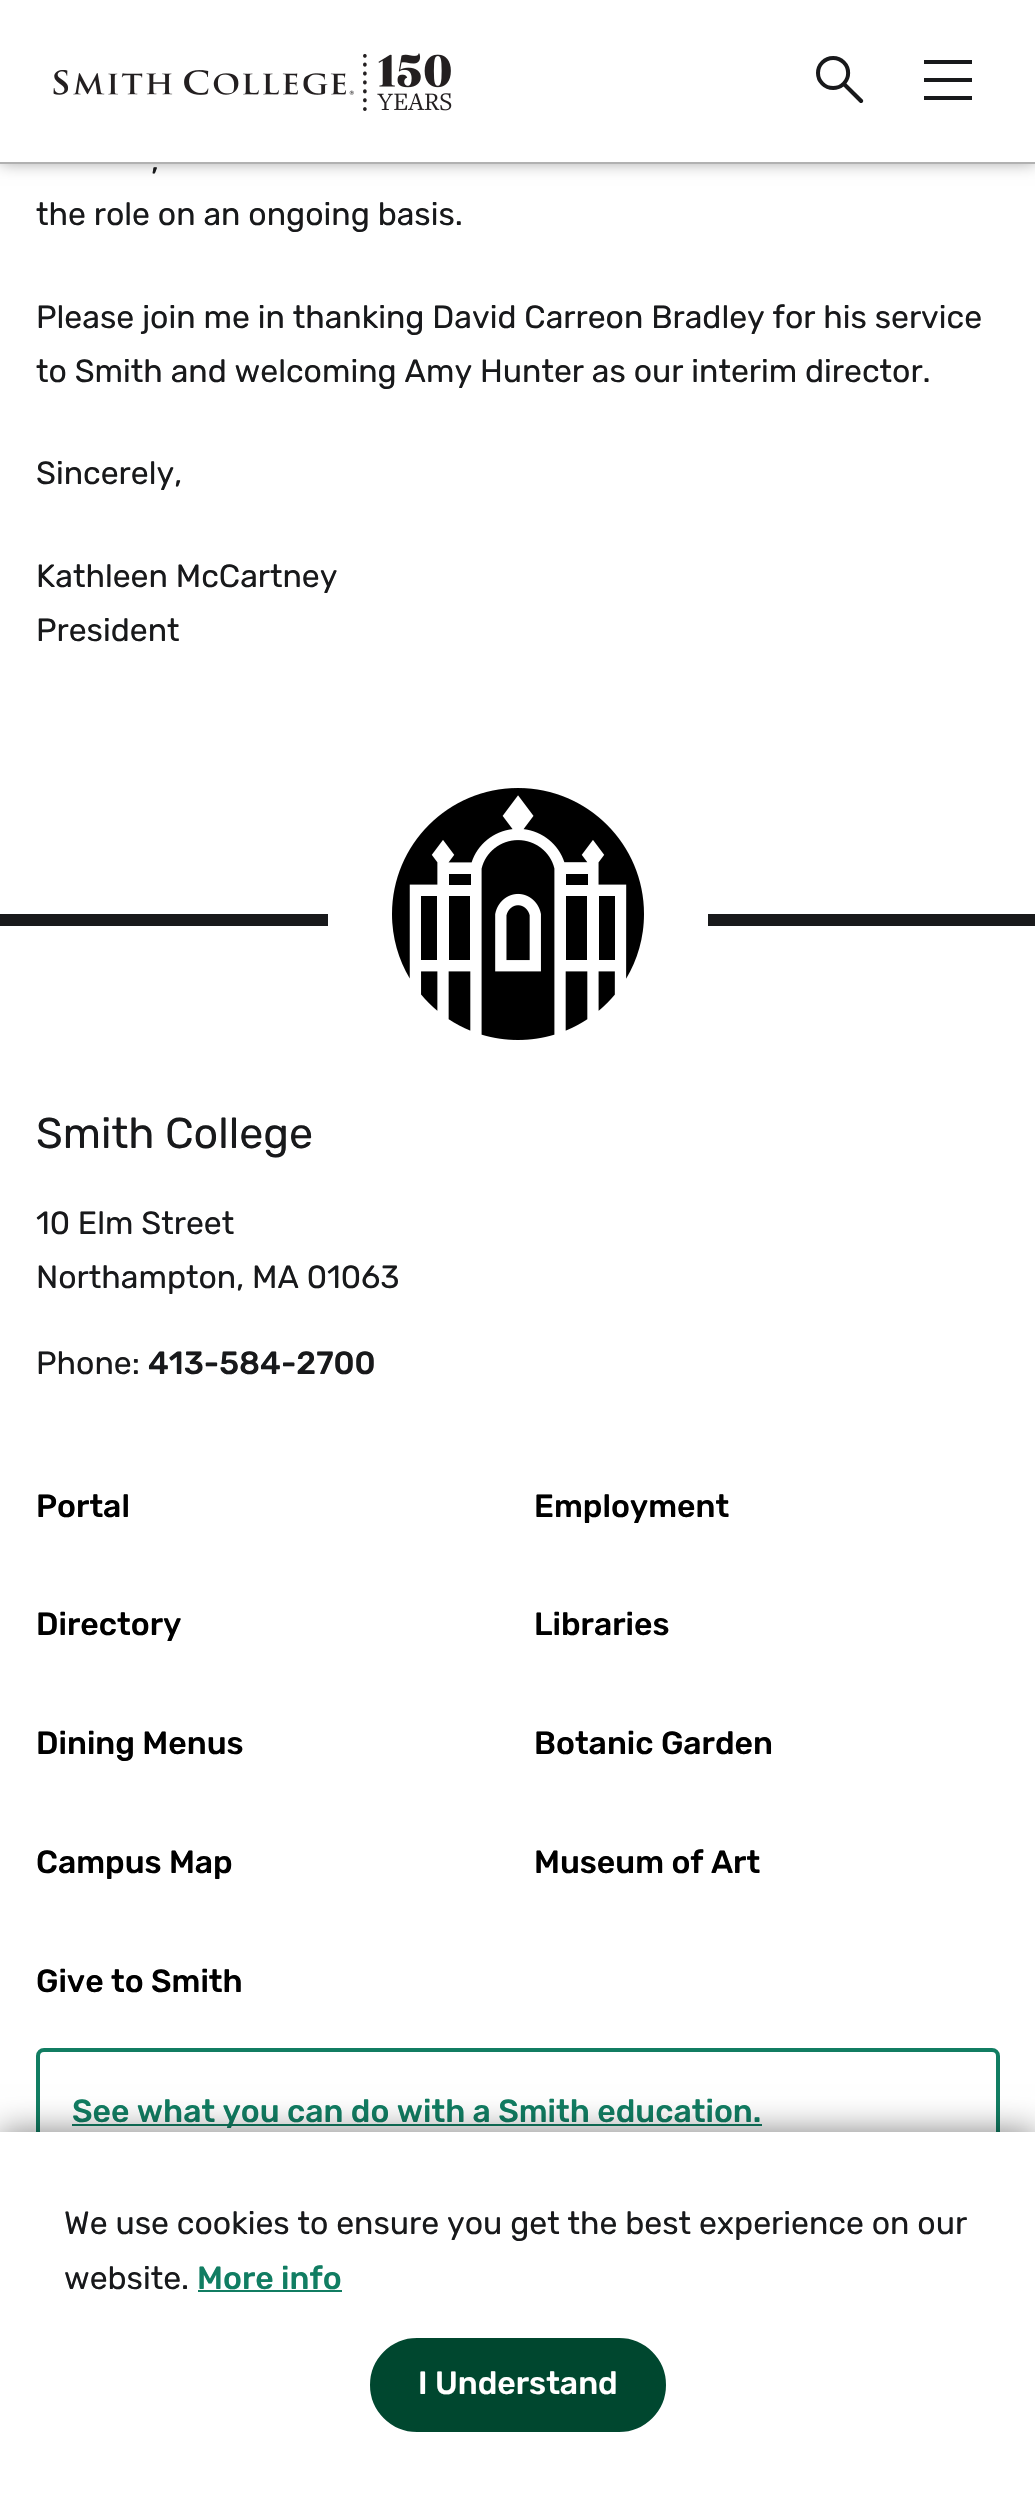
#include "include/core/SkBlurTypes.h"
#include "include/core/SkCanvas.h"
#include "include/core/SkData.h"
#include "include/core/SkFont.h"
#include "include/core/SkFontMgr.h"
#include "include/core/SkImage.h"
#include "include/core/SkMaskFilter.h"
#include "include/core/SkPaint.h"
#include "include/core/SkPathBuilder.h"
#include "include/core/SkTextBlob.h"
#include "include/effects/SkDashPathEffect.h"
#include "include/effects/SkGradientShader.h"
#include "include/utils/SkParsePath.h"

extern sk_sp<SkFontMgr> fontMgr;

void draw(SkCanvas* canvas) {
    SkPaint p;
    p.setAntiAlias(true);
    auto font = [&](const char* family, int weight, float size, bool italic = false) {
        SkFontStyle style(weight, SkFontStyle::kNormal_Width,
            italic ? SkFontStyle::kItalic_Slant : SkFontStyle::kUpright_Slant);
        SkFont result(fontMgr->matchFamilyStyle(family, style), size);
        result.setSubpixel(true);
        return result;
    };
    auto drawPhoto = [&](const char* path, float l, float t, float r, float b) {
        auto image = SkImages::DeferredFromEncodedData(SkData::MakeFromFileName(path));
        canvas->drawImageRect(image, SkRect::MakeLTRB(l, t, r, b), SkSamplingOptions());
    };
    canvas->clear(0xFFFFFFFF);
    p.setColor(0x66000000);
    p.setMaskFilter(SkMaskFilter::MakeBlur(kNormal_SkBlurStyle, 8));
    canvas->drawRect(SkRect::MakeLTRB(0, 0, 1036, 162), p);
    p.setMaskFilter(nullptr);
    p.setColor(0xFFFFFFFF);
    canvas->drawRect(SkRect::MakeLTRB(0, 0, 1035, 162), p);
    drawPhoto("media/1.png", 53, 53, 452, 111);
    drawPhoto("media/2.png", 816, 56, 864, 103);
    {
        const struct { float l, t, r, b; SkColor color; } items[] = {
            {924, 60, 972, 64, 0xFF18191B},
            {924, 78, 972, 82, 0xFF18191B},
            {924, 96, 972, 100, 0xFF18191B},
            {0, 162, 1035, 164, 0xFFB1B1B1},
        };
        for (auto [l, t, r, b, color] : items) {
            p.setColor(color);
            canvas->drawRect(SkRect::MakeLTRB(l, t, r, b), p);
        }
    }
    auto font1 = font("Rubik", 400, 32);
    p.setColor(0xFF18191B);
    {
        const struct { const char* s; float x, y; } items[] = {
            {",", 151, 171},
            {"the role on an ongoing basis.", 36, 225},
            {"Please join me in thanking David Carreon Bradley for his service", 36, 328},
            {"to Smith and welcoming Amy Hunter as our interim director.", 36, 382},
            {"Sincerely,", 36, 484},
            {"Kathleen McCartney", 36, 587},
            {"President", 36, 641},
        };
        for (auto [s, x, y] : items) {
            canvas->drawString(s, x, y, font1, p);
        }
    }
    canvas->drawRect(SkRect::MakeLTRB(0, 914, 1035, 926), p);
    p.setColor(0xFFFFFFFF);
    canvas->drawRect(SkRect::MakeLTRB(328, 914, 708, 926), p);
    drawPhoto("media/3.png", 392, 788, 644, 1040);
    auto font2 = font("Rubik", 400, 43);
    p.setColor(0xFF18191B);
    canvas->drawString("Smith College", 36, 1148, font2, p);
    {
        const struct { const char* s; float x, y; } items[] = {
            {"10 Elm Street", 36, 1234},
            {"Northampton, MA 01063", 36, 1288},
            {"Phone:", 36, 1374},
        };
        for (auto [s, x, y] : items) {
            canvas->drawString(s, x, y, font1, p);
        }
    }
    auto font3 = font("Rubik", 500, 32);
    canvas->drawString("413-584-2700", 148, 1374, font3, p);
    p.setColor(0xFF000000);
    {
        const struct { const char* s; float x, y; } items[] = {
            {"Portal", 36, 1517},
            {"Employment", 534, 1517},
            {"Directory", 36, 1635},
            {"Libraries", 534, 1635},
            {"Dining Menus", 36, 1754},
            {"Botanic Garden", 534, 1754},
            {"Campus Map", 36, 1873},
            {"Museum of Art", 534, 1873},
            {"Give to Smith", 36, 1992},
        };
        for (auto [s, x, y] : items) {
            canvas->drawString(s, x, y, font3, p);
        }
    }
    p.setStyle(SkPaint::kStroke_Style);
    p.setStrokeWidth(4);
    p.setColor(0xFF117D62);
    canvas->drawRoundRect(SkRect::MakeLTRB(38, 2050, 998, 2172), 6, 6, p);
    p.setStyle(SkPaint::kFill_Style);
    canvas->drawRect(SkRect::MakeLTRB(72, 2124, 762, 2126), p);
    canvas->drawString("See what you can do with a Smith education.", 72, 2122, font3, p);
    p.setColor(0x80000000);
    p.setMaskFilter(SkMaskFilter::MakeBlur(kNormal_SkBlurStyle, 16));
    canvas->drawRect(SkRect::MakeLTRB(0, 2132, 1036, 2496), p);
    p.setMaskFilter(nullptr);
    p.setColor(0xFFFFFFFF);
    canvas->drawRect(SkRect::MakeLTRB(0, 2132, 1035, 2495), p);
    p.setColor(0xFF18191B);
    canvas->drawString("We use cookies to ensure you get the best experience on our", 64, 2234, font1, p);
    canvas->drawString("website.", 64, 2289, font1, p);
    p.setColor(0xFF117D62);
    canvas->drawString("More info", 197, 2289, font3, p);
    canvas->drawRect(SkRect::MakeLTRB(198, 2290, 342, 2292), p);
    p.setColor(0xFF00472F);
    canvas->drawRoundRect(SkRect::MakeLTRB(372, 2340, 664, 2430), 45, 45, p);
    p.setStyle(SkPaint::kStroke_Style);
    canvas->drawRoundRect(SkRect::MakeLTRB(372, 2340, 664, 2430), 45, 45, p);
    p.setStyle(SkPaint::kFill_Style);
    p.setColor(0xFFFFFFFF);
    canvas->drawString("I Understand", 418, 2394, font3, p);
}
